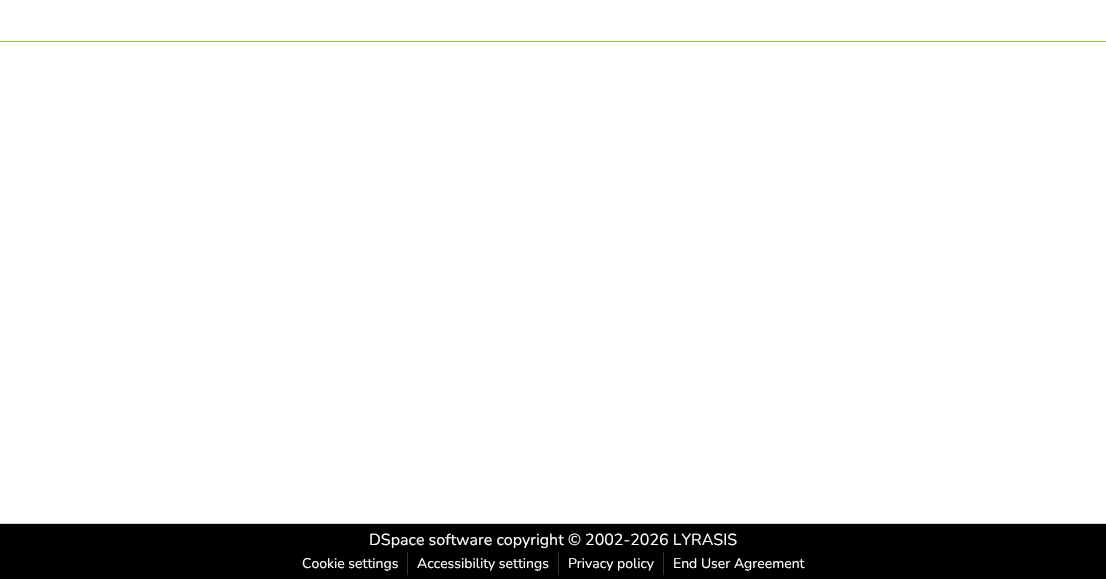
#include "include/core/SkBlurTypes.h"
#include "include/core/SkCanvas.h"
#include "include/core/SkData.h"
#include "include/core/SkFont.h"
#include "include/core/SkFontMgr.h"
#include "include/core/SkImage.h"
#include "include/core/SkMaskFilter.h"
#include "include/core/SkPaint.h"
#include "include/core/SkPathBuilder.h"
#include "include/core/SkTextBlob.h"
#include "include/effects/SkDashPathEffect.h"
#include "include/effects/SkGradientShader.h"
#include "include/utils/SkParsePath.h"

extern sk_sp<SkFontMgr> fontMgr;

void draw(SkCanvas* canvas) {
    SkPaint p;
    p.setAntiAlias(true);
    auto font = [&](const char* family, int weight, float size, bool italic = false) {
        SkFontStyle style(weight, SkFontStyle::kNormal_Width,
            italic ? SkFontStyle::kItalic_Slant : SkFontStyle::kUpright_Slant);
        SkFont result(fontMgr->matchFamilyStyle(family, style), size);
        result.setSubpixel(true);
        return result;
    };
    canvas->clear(0xFFFFFFFF);
    {
        const struct { float l, t, r, b; SkColor color; } items[] = {
            {0, 41, 1106, 42, 0xFF92C642},
            {0, 524, 1106, 579, 0xFF000000},
            {0, 523, 1106, 524, 0xFFCED4DA},
        };
        for (auto [l, t, r, b, color] : items) {
            p.setColor(color);
            canvas->drawRect(SkRect::MakeLTRB(l, t, r, b), p);
        }
    }
    auto font1 = font("Nunito", 400, 16);
    p.setColor(0xFFFFFFFF);
    canvas->drawString("DSpace software copyright © 2002-2026 LYRASIS", 369, 545, font1, p);
    auto font2 = font("Nunito", 400, 14);
    canvas->drawString("Cookie settings", 302, 568, font2, p);
    p.setColor(0xFF333333);
    canvas->drawRect(SkRect::MakeLTRB(407, 552, 408, 575), p);
    p.setColor(0xFFFFFFFF);
    canvas->drawString("Accessibility settings", 417, 568, font2, p);
    p.setColor(0xFF333333);
    canvas->drawRect(SkRect::MakeLTRB(558, 552, 559, 575), p);
    p.setColor(0xFFFFFFFF);
    canvas->drawString("Privacy policy", 568, 568, font2, p);
    p.setColor(0xFF333333);
    canvas->drawRect(SkRect::MakeLTRB(663, 552, 664, 575), p);
    p.setColor(0xFFFFFFFF);
    canvas->drawString("End User Agreement", 673, 568, font2, p);
}
